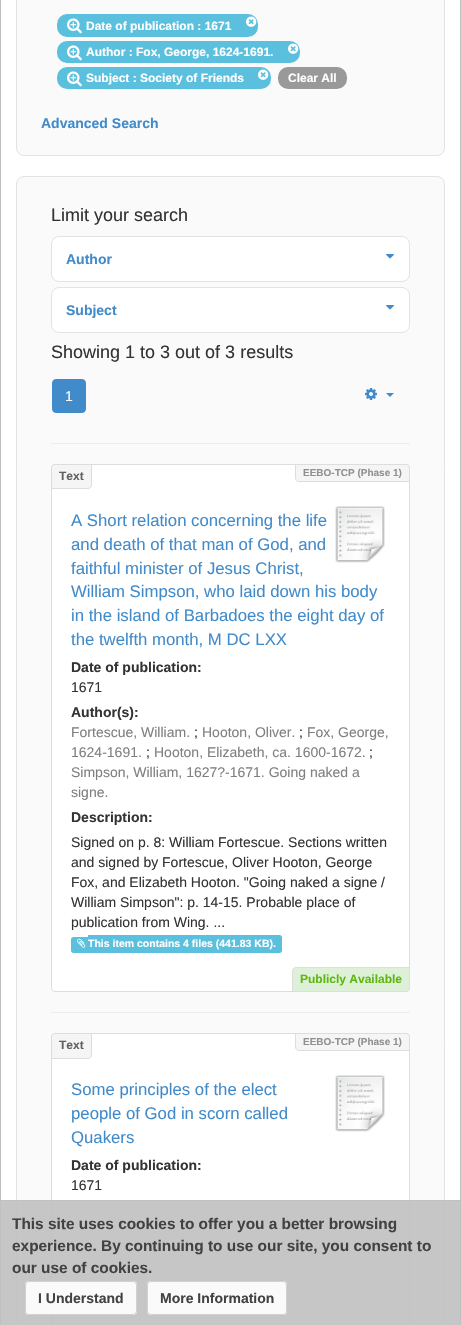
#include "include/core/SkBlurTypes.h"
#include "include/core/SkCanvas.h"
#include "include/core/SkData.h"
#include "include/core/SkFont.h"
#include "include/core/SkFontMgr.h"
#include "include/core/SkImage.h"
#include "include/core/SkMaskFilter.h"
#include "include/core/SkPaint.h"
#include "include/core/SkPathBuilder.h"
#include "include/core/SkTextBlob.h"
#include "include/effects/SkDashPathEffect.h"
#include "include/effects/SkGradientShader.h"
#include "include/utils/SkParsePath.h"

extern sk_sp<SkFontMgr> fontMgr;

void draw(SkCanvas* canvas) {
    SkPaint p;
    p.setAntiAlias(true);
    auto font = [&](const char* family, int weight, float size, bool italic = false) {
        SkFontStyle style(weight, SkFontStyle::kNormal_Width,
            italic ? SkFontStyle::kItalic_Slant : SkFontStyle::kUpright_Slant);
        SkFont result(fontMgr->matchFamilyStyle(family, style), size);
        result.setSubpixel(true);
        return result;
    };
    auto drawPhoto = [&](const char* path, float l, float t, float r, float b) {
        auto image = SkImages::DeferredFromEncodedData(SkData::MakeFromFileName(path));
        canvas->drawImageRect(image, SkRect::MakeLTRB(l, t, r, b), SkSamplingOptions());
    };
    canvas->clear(0xFFFFFFFF);
    p.setColor(0xFFC0C0C0);
    canvas->drawRect(SkRect::MakeLTRB(460, 0, 461, 1325), p);
    canvas->drawRect(SkRect::MakeLTRB(0, 0, 1, 1325), p);
    p.setColor(0xFFFAFAFA);
    canvas->drawRoundRect(SkRect::MakeLTRB(16.5f, -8.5f, 444.5f, 155.5f), 7.5f, 7.5f, p);
    p.setStyle(SkPaint::kStroke_Style);
    p.setStrokeWidth(1);
    p.setColor(0xFFE3E3E3);
    canvas->drawRoundRect(SkRect::MakeLTRB(16.5f, -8.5f, 444.5f, 155.5f), 7.5f, 7.5f, p);
    p.setStyle(SkPaint::kFill_Style);
    p.setColor(0xFF5BC0DE);
    canvas->drawRoundRect(SkRect::MakeLTRB(57, 14, 258, 37), 10, 10, p);
    drawPhoto("media/1.png", 67, 18, 82, 34);
    auto font1 = font("Liberation Sans", 700, 12);
    p.setColor(0xFFFFFFFF);
    canvas->drawString("Date of publication : 1671", 86, 30, font1, p);
    drawPhoto("media/2.png", 246, 16, 257, 27);
    p.setColor(0xFF5BC0DE);
    canvas->drawRoundRect(SkRect::MakeLTRB(57, 41, 300, 63), 10, 10, p);
    drawPhoto("media/1.png", 67, 45, 82, 61);
    p.setColor(0xFFFFFFFF);
    canvas->drawString("Author : Fox, George, 1624-1691.", 86, 56, font1, p);
    drawPhoto("media/2.png", 288, 43, 299, 54);
    p.setColor(0xFF5BC0DE);
    canvas->drawRoundRect(SkRect::MakeLTRB(57, 67, 271, 89), 10, 10, p);
    drawPhoto("media/1.png", 67, 71, 82, 87);
    p.setColor(0xFFFFFFFF);
    canvas->drawString("Subject : Society of Friends", 86, 82, font1, p);
    drawPhoto("media/3.png", 258, 69, 269, 80);
    p.setColor(0xFF999999);
    canvas->drawRoundRect(SkRect::MakeLTRB(278, 67, 347, 89), 10, 10, p);
    p.setColor(0xFFFFFFFF);
    canvas->drawString("Clear All", 288, 82, font1, p);
    auto font2 = font("Liberation Sans", 700, 14);
    p.setColor(0xFF428BCA);
    canvas->drawString("Advanced Search", 41, 128, font2, p);
    p.setColor(0xFFFAFAFA);
    canvas->drawRoundRect(SkRect::MakeLTRB(16.5f, 176.5f, 444.5f, 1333.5f), 7.5f, 7.5f, p);
    p.setStyle(SkPaint::kStroke_Style);
    p.setColor(0xFFE3E3E3);
    canvas->drawRoundRect(SkRect::MakeLTRB(16.5f, 176.5f, 444.5f, 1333.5f), 7.5f, 7.5f, p);
    auto font3 = font("Liberation Sans", 400, 18);
    p.setStyle(SkPaint::kFill_Style);
    p.setColor(0xFF333333);
    canvas->drawString("Limit your search", 51, 221, font3, p);
    p.setColor(0xFFFFFFFF);
    canvas->drawRoundRect(SkRect::MakeLTRB(51.5f, 236.5f, 409.5f, 281.5f), 7.5f, 7.5f, p);
    p.setStyle(SkPaint::kStroke_Style);
    p.setColor(0xFFE3E3E3);
    canvas->drawRoundRect(SkRect::MakeLTRB(51.5f, 236.5f, 409.5f, 281.5f), 7.5f, 7.5f, p);
    p.setStyle(SkPaint::kFill_Style);
    p.setColor(0xFF428BCA);
    canvas->drawString("Author", 66, 264, font2, p);
    drawPhoto("media/4.png", 386, 254, 394, 259);
    p.setColor(0xFFFFFFFF);
    canvas->drawRoundRect(SkRect::MakeLTRB(51.5f, 287.5f, 409.5f, 332.5f), 7.5f, 7.5f, p);
    p.setStyle(SkPaint::kStroke_Style);
    p.setColor(0xFFE3E3E3);
    canvas->drawRoundRect(SkRect::MakeLTRB(51.5f, 287.5f, 409.5f, 332.5f), 7.5f, 7.5f, p);
    p.setStyle(SkPaint::kFill_Style);
    p.setColor(0xFF428BCA);
    canvas->drawString("Subject", 66, 315, font2, p);
    drawPhoto("media/4.png", 386, 305, 394, 310);
    p.setColor(0xFF333333);
    canvas->drawString("Showing 1 to 3 out of 3 results", 51, 358, font3, p);
    p.setColor(0xFF428BCA);
    canvas->drawRoundRect(SkRect::MakeLTRB(52.5f, 379.5f, 85.5f, 412.5f), 3.5f, 3.5f, p);
    p.setStyle(SkPaint::kStroke_Style);
    canvas->drawRoundRect(SkRect::MakeLTRB(52.5f, 379.5f, 85.5f, 412.5f), 3.5f, 3.5f, p);
    auto font4 = font("Liberation Sans", 400, 14);
    p.setStyle(SkPaint::kFill_Style);
    p.setColor(0xFFFFFFFF);
    canvas->drawString("1", 65, 401, font4, p);
    drawPhoto("media/5.png", 365, 388, 377, 400);
    p.setColor(0xFF428BCA);
    canvas->drawPath(SkPathBuilder().moveTo(386, 393).lineTo(394, 393).lineTo(390, 397).close().detach(), p);
    p.setColor(0xFFEEEEEE);
    canvas->drawRect(SkRect::MakeLTRB(51, 443, 410, 444), p);
    p.setColor(0xFFFFFFFF);
    canvas->drawRoundRect(SkRect::MakeLTRB(51.5f, 464.5f, 409.5f, 991.5f), 3.5f, 3.5f, p);
    p.setStyle(SkPaint::kStroke_Style);
    p.setColor(0xFFDDDDDD);
    canvas->drawRoundRect(SkRect::MakeLTRB(51.5f, 464.5f, 409.5f, 991.5f), 3.5f, 3.5f, p);
    p.setStyle(SkPaint::kFill_Style);
    p.setColor(0xFFF5F5F5);
    canvas->drawPath(SkPathBuilder().moveTo(55, 464.5f).lineTo(91.5f, 464.5f).lineTo(91.5f, 485).cubicTo(91.5f, 487, 90, 488.5f, 88, 488.5f).lineTo(51.5f, 488.5f).lineTo(51.5f, 468).cubicTo(51.5f, 466, 53, 464.5f, 55, 464.5f).close().detach(), p);
    p.setStyle(SkPaint::kStroke_Style);
    p.setColor(0xFFDDDDDD);
    canvas->drawPath(SkPathBuilder().moveTo(55, 464.5f).lineTo(91.5f, 464.5f).lineTo(91.5f, 485).cubicTo(91.5f, 487, 90, 488.5f, 88, 488.5f).lineTo(51.5f, 488.5f).lineTo(51.5f, 468).cubicTo(51.5f, 466, 53, 464.5f, 55, 464.5f).close().detach(), p);
    p.setStyle(SkPaint::kFill_Style);
    p.setColor(0xFF616161);
    canvas->drawString("Text", 59, 480, font1, p);
    p.setColor(0xFFF5F5F5);
    canvas->drawPath(SkPathBuilder().moveTo(295.5f, 464.5f).lineTo(406, 464.5f).cubicTo(408, 464.5f, 409.5f, 466, 409.5f, 468).lineTo(409.5f, 481.5f).lineTo(299, 481.5f).cubicTo(297, 481.5f, 295.5f, 480, 295.5f, 478).close().detach(), p);
    p.setStyle(SkPaint::kStroke_Style);
    p.setColor(0xFFDDDDDD);
    canvas->drawPath(SkPathBuilder().moveTo(295.5f, 464.5f).lineTo(406, 464.5f).cubicTo(408, 464.5f, 409.5f, 466, 409.5f, 468).lineTo(409.5f, 481.5f).lineTo(299, 481.5f).cubicTo(297, 481.5f, 295.5f, 480, 295.5f, 478).close().detach(), p);
    auto font5 = font("Liberation Sans", 700, 10);
    p.setStyle(SkPaint::kFill_Style);
    p.setColor(0xFF909090);
    canvas->drawString("EEBO-TCP (Phase 1)", 303, 476, font5, p);
    drawPhoto("media/6.png", 335, 506, 385, 563);
    auto font6 = font("Liberation Sans", 400, 16.75f);
    p.setColor(0xFF428BCA);
    {
        const struct { const char* s; float x, y; } items[] = {
            {"A Short relation concerning the life", 71, 526},
            {"and death of that man of God, and", 71, 550},
            {"faithful minister of Jesus Christ,", 71, 574},
            {"William Simpson, who laid down his body", 71, 597},
            {"in the island of Barbadoes the eight day of", 71, 621},
            {"the twelfth month, M DC LXX", 71, 645},
        };
        for (auto [s, x, y] : items) {
            canvas->drawString(s, x, y, font6, p);
        }
    }
    p.setColor(0xFF333333);
    canvas->drawString("Date of publication:", 71, 672, font2, p);
    canvas->drawString("1671", 71, 692, font4, p);
    canvas->drawString("Author(s):", 71, 717, font2, p);
    p.setColor(0xFF808080);
    canvas->drawString("Fortescue, William.", 71, 737, font4, p);
    p.setColor(0xFF333333);
    canvas->drawString(";", 194, 737, font4, p);
    p.setColor(0xFF808080);
    canvas->drawString("Hooton, Oliver.", 202, 737, font4, p);
    p.setColor(0xFF333333);
    canvas->drawString(";", 299, 737, font4, p);
    p.setColor(0xFF808080);
    canvas->drawString("Fox, George,", 307, 737, font4, p);
    canvas->drawString("1624-1691.", 71, 757, font4, p);
    p.setColor(0xFF333333);
    canvas->drawString(";", 146, 757, font4, p);
    p.setColor(0xFF808080);
    canvas->drawString("Hooton, Elizabeth, ca. 1600-1672.", 154, 757, font4, p);
    p.setColor(0xFF333333);
    canvas->drawString(";", 369, 757, font4, p);
    p.setColor(0xFF808080);
    canvas->drawString("Simpson, William, 1627?-1671. Going naked a", 71, 777, font4, p);
    canvas->drawString("signe.", 71, 797, font4, p);
    p.setColor(0xFF333333);
    canvas->drawString("Description:", 71, 822, font2, p);
    {
        const struct { const char* s; float x, y; } items[] = {
            {"Signed on p. 8: William Fortescue. Sections written", 71, 847},
            {"and signed by Fortescue, Oliver Hooton, George", 71, 867},
            {"Fox, and Elizabeth Hooton. \"Going naked a signe /", 71, 887},
            {"William Simpson\": p. 14-15. Probable place of", 71, 907},
            {"publication from Wing. ...", 71, 927},
        };
        for (auto [s, x, y] : items) {
            canvas->drawString(s, x, y, font4, p);
        }
    }
    p.setColor(0xFF5BC0DE);
    canvas->drawPath(SkPathBuilder().moveTo(73.5f, 937).lineTo(88, 937).lineTo(88, 953).lineTo(73.5f, 953).cubicTo(72, 953, 71, 952, 71, 950.5f).lineTo(71, 939.5f).cubicTo(71, 938, 72, 937, 73.5f, 937).close().detach(), p);
    canvas->drawPath(SkPathBuilder().moveTo(88, 935).lineTo(279.5f, 935).cubicTo(281, 935, 282, 936, 282, 937.5f).lineTo(282, 950.5f).cubicTo(282, 952, 281, 953, 279.5f, 953).lineTo(88, 953).close().detach(), p);
    drawPhoto("media/7.png", 77, 938, 86, 948);
    auto font7 = font("Liberation Sans", 700, 10.5f);
    p.setColor(0xFFFFFFFF);
    canvas->drawString("This item contains 4 files (441.83 KB).", 88, 947, font7, p);
    p.setColor(0xFFDFF0D8);
    canvas->drawPath(SkPathBuilder().moveTo(296, 967.5f).lineTo(409.5f, 967.5f).lineTo(409.5f, 988).cubicTo(409.5f, 990, 408, 991.5f, 406, 991.5f).lineTo(292.5f, 991.5f).lineTo(292.5f, 971).cubicTo(292.5f, 969, 294, 967.5f, 296, 967.5f).close().detach(), p);
    p.setStyle(SkPaint::kStroke_Style);
    p.setColor(0xFFDDDDDD);
    canvas->drawPath(SkPathBuilder().moveTo(296, 967.5f).lineTo(409.5f, 967.5f).lineTo(409.5f, 988).cubicTo(409.5f, 990, 408, 991.5f, 406, 991.5f).lineTo(292.5f, 991.5f).lineTo(292.5f, 971).cubicTo(292.5f, 969, 294, 967.5f, 296, 967.5f).close().detach(), p);
    p.setStyle(SkPaint::kFill_Style);
    p.setColor(0xFF5CB811);
    canvas->drawString("Publicly Available", 300, 983, font1, p);
    p.setColor(0xFFEEEEEE);
    canvas->drawRect(SkRect::MakeLTRB(51, 1012, 410, 1013), p);
    p.setColor(0xFFFFFFFF);
    canvas->drawRoundRect(SkRect::MakeLTRB(51.5f, 1033.5f, 409.5f, 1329.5f), 3.5f, 3.5f, p);
    p.setStyle(SkPaint::kStroke_Style);
    p.setColor(0xFFDDDDDD);
    canvas->drawRoundRect(SkRect::MakeLTRB(51.5f, 1033.5f, 409.5f, 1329.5f), 3.5f, 3.5f, p);
    p.setStyle(SkPaint::kFill_Style);
    p.setColor(0xFFF5F5F5);
    canvas->drawPath(SkPathBuilder().moveTo(55, 1033.5f).lineTo(91.5f, 1033.5f).lineTo(91.5f, 1055).cubicTo(91.5f, 1057, 90, 1058.5f, 88, 1058.5f).lineTo(51.5f, 1058.5f).lineTo(51.5f, 1037).cubicTo(51.5f, 1035, 53, 1033.5f, 55, 1033.5f).close().detach(), p);
    p.setStyle(SkPaint::kStroke_Style);
    p.setColor(0xFFDDDDDD);
    canvas->drawPath(SkPathBuilder().moveTo(55, 1033.5f).lineTo(91.5f, 1033.5f).lineTo(91.5f, 1055).cubicTo(91.5f, 1057, 90, 1058.5f, 88, 1058.5f).lineTo(51.5f, 1058.5f).lineTo(51.5f, 1037).cubicTo(51.5f, 1035, 53, 1033.5f, 55, 1033.5f).close().detach(), p);
    p.setStyle(SkPaint::kFill_Style);
    p.setColor(0xFF616161);
    canvas->drawString("Text", 59, 1049, font1, p);
    p.setColor(0xFFF5F5F5);
    canvas->drawPath(SkPathBuilder().moveTo(295.5f, 1033.5f).lineTo(406, 1033.5f).cubicTo(408, 1033.5f, 409.5f, 1035, 409.5f, 1037).lineTo(409.5f, 1050.5f).lineTo(299, 1050.5f).cubicTo(297, 1050.5f, 295.5f, 1049, 295.5f, 1047).close().detach(), p);
    p.setStyle(SkPaint::kStroke_Style);
    p.setColor(0xFFDDDDDD);
    canvas->drawPath(SkPathBuilder().moveTo(295.5f, 1033.5f).lineTo(406, 1033.5f).cubicTo(408, 1033.5f, 409.5f, 1035, 409.5f, 1037).lineTo(409.5f, 1050.5f).lineTo(299, 1050.5f).cubicTo(297, 1050.5f, 295.5f, 1049, 295.5f, 1047).close().detach(), p);
    p.setStyle(SkPaint::kFill_Style);
    p.setColor(0xFF909090);
    canvas->drawString("EEBO-TCP (Phase 1)", 303, 1045, font5, p);
    p.setColor(0xFF428BCA);
    {
        const struct { const char* s; float x, y; } items[] = {
            {"Some principles of the elect", 71, 1095},
            {"people of God in scorn called", 71, 1119},
            {"Quakers", 71, 1143},
        };
        for (auto [s, x, y] : items) {
            canvas->drawString(s, x, y, font6, p);
        }
    }
    drawPhoto("media/6.png", 335, 1075, 385, 1132);
    p.setColor(0xFF333333);
    canvas->drawString("Date of publication:", 71, 1170, font2, p);
    canvas->drawString("1671", 71, 1190, font4, p);
    p.setColor(0xE6C0C0C0);
    canvas->drawRect(SkRect::MakeLTRB(1, 1200, 460, 1325), p);
    canvas->drawRect(SkRect::MakeLTRB(0, 1200, 461, 1201), p);
    auto font8 = font("Liberation Sans", 700, 15.4f);
    p.setColor(0xFF424242);
    {
        const struct { const char* s; float x, y; } items[] = {
            {"This site uses cookies to offer you a better browsing", 12, 1229},
            {"experience. By continuing to use our site, you consent to", 12, 1251},
            {"our use of cookies.", 12, 1273},
        };
        for (auto [s, x, y] : items) {
            canvas->drawString(s, x, y, font8, p);
        }
    }
    p.setColor(0xE6FFFFFF);
    canvas->drawRoundRect(SkRect::MakeLTRB(25, 1281, 137, 1315), 4, 4, p);
    p.setStyle(SkPaint::kStroke_Style);
    p.setColor(0xE6CCCCCC);
    canvas->drawRoundRect(SkRect::MakeLTRB(25.5f, 1281.5f, 136.5f, 1314.5f), 3.5f, 3.5f, p);
    p.setStyle(SkPaint::kFill_Style);
    p.setColor(0xFF424242);
    canvas->drawString("I Understand", 38, 1303, font2, p);
    p.setColor(0xE6FFFFFF);
    canvas->drawRoundRect(SkRect::MakeLTRB(147, 1281, 287, 1315), 4, 4, p);
    p.setStyle(SkPaint::kStroke_Style);
    p.setColor(0xE6CCCCCC);
    canvas->drawRoundRect(SkRect::MakeLTRB(147.5f, 1281.5f, 286.5f, 1314.5f), 3.5f, 3.5f, p);
    p.setStyle(SkPaint::kFill_Style);
    p.setColor(0xFF424242);
    canvas->drawString("More Information", 160, 1303, font2, p);
}
